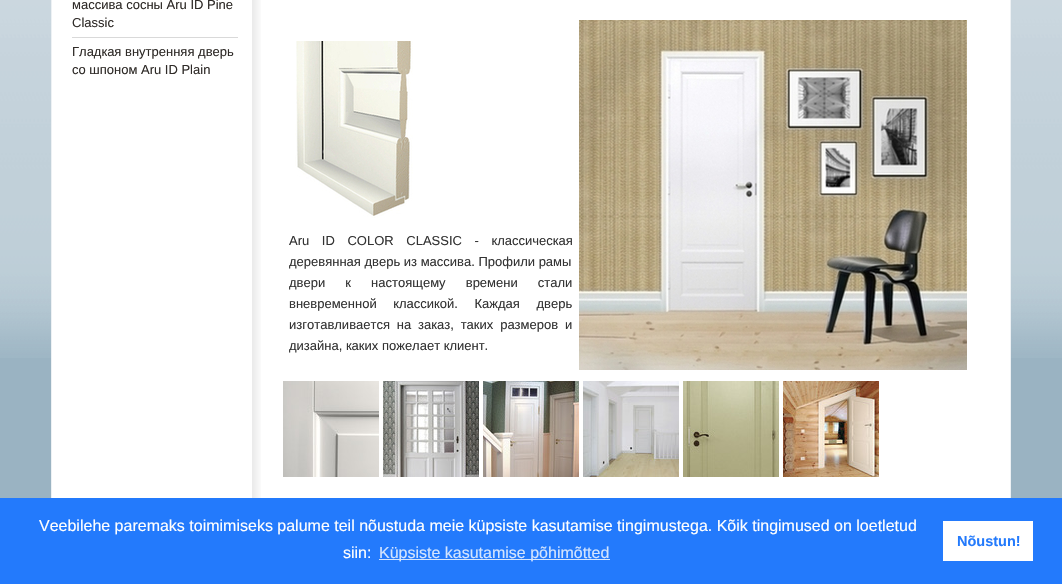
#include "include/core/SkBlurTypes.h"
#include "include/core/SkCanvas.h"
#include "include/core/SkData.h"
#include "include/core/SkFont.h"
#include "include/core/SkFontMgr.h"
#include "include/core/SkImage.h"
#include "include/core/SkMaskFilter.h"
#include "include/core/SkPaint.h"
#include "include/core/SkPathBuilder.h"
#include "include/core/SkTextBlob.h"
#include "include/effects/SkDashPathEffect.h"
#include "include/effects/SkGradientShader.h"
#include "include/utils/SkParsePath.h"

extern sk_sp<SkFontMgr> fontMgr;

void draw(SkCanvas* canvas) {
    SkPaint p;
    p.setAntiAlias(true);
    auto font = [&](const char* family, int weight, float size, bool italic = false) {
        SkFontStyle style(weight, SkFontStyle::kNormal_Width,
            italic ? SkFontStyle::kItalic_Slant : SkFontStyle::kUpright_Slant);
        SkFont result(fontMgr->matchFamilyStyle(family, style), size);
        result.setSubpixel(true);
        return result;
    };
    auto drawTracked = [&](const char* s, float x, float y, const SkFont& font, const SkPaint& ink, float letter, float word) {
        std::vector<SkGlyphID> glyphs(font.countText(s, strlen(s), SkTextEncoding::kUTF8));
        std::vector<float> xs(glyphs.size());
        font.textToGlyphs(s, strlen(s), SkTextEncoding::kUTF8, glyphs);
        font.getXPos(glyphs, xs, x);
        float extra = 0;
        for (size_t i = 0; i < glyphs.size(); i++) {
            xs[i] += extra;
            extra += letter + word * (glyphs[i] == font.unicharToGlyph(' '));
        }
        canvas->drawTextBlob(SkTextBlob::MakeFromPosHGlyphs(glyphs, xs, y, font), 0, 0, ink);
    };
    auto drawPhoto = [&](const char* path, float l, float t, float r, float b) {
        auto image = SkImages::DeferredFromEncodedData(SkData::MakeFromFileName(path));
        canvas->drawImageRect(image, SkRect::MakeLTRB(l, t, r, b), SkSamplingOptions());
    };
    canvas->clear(0xFF9AB3C2);
    drawPhoto("media/1.png", 0, 0, 1062, 358);
    p.setColor(0xFFFFFFFF);
    canvas->drawRect(SkRect::MakeLTRB(52, 0, 1010, 498), p);
    p.setStyle(SkPaint::kStroke_Style);
    p.setStrokeWidth(1);
    p.setColor(0xFFEDF1F4);
    canvas->drawRect(SkRect::MakeLTRB(51.5f, -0.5f, 1010.5f, 509.5f), p);
    drawPhoto("media/2.png", 252, 0, 261, 498);
    auto font1 = font("Liberation Sans", 400, 13);
    p.setStyle(SkPaint::kFill_Style);
    p.setColor(0xFF2F2B28);
    canvas->drawString("массива сосны Aru ID Pine", 72, 9, font1, p);
    canvas->drawString("Classic", 72, 27, font1, p);
    p.setColor(0xFFD9D9D9);
    canvas->drawRect(SkRect::MakeLTRB(72, 37, 238, 38), p);
    p.setColor(0xFF2F2B28);
    canvas->drawString("Гладкая внутренняя дверь", 72, 56, font1, p);
    canvas->drawString("со шпоном Aru ID Plain", 72, 74, font1, p);
    drawPhoto("media/3.png", 295, 41, 413, 218);
    p.setColor(0xFF333333);
    drawTracked("Aru ID COLOR CLASSIC - классическая", 289, 245, font1, p, 0, 9);
    canvas->drawString("деревянная дверь из массива. Профили рамы", 289, 266, font1, p);
    drawTracked("двери к настоящему времени стали", 289, 287, font1, p, 0, 16.5f);
    drawTracked("вневременной классикой. Каждая дверь", 289, 308, font1, p, 0, 13);
    drawTracked("изготавливается на заказ, таких размеров и", 289, 329, font1, p, 0, 3.25f);
    canvas->drawString("дизайна, каких пожелает клиент.", 289, 350, font1, p);
    drawPhoto("media/4.png", 579, 20, 967, 370);
    drawPhoto("media/5.png", 283, 381, 379, 477);
    drawPhoto("media/6.png", 383, 381, 479, 477);
    drawPhoto("media/7.png", 483, 381, 579, 477);
    drawPhoto("media/8.png", 583, 381, 679, 477);
    drawPhoto("media/9.png", 683, 381, 779, 477);
    drawPhoto("media/10.png", 783, 381, 879, 477);
    p.setColor(0xFF237AFC);
    canvas->drawRect(SkRect::MakeLTRB(0, 498, 1062, 584), p);
    auto font2 = font("Liberation Sans", 400, 16);
    p.setColor(0xFFFFFFFF);
    canvas->drawString("Veebilehe paremaks toimimiseks palume teil nõustuda meie küpsiste kasutamise tingimustega. Kõik tingimused on loetletud", 39, 531, font2, p);
    canvas->drawString("siin:", 343, 558, font2, p);
    p.setColor(0xFFD3E4FE);
    canvas->drawRect(SkRect::MakeLTRB(379, 559, 610, 560), p);
    canvas->drawString("Küpsiste kasutamise põhimõtted", 379, 558, font2, p);
    p.setColor(0xFFFFFFFF);
    canvas->drawRect(SkRect::MakeLTRB(943, 521, 1033, 561), p);
    auto font3 = font("Liberation Sans", 700, 14.5f);
    p.setColor(0xFF237AFC);
    canvas->drawString("Nõustun!", 957, 546, font3, p);
}
